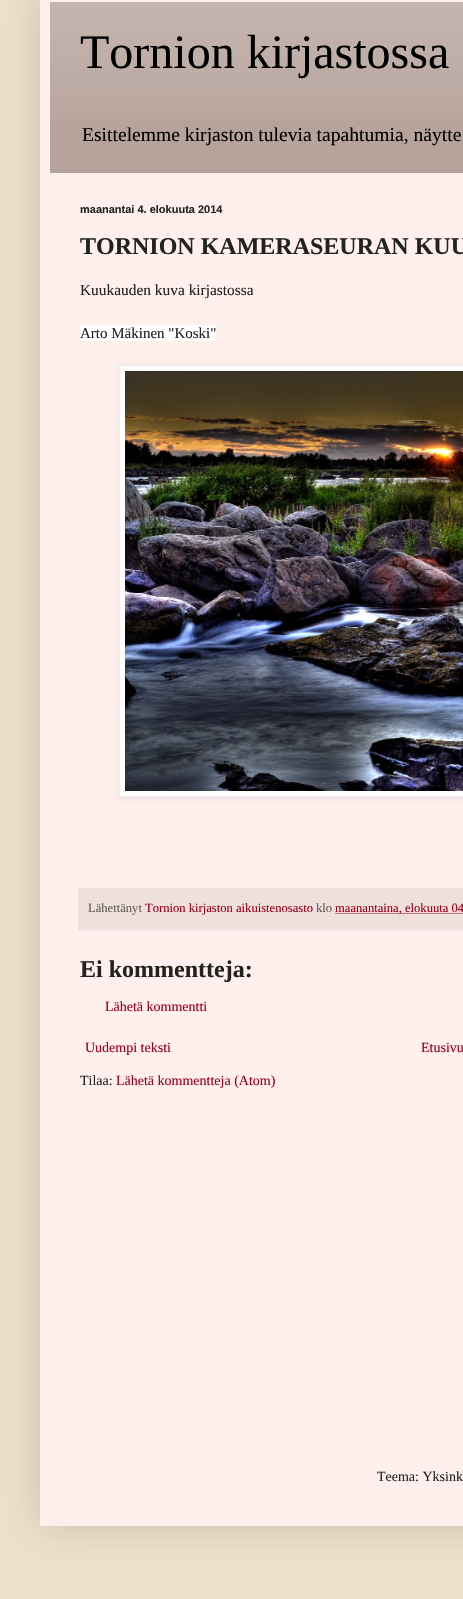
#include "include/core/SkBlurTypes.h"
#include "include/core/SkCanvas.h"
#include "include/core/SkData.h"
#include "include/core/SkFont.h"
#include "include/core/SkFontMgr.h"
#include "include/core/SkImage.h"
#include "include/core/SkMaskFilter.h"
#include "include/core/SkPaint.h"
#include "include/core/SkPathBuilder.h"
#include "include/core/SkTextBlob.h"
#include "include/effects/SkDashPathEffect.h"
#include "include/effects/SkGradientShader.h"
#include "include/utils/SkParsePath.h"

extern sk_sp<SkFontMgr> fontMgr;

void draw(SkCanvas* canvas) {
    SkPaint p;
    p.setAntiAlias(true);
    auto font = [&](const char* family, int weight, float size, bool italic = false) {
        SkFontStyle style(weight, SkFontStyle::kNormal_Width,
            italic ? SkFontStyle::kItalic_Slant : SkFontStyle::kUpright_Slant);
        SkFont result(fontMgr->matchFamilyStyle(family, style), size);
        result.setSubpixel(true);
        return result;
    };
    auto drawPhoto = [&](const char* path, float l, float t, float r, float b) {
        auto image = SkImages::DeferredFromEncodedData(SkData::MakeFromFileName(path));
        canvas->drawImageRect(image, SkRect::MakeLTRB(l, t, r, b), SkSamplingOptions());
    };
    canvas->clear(0xFFEFE0CB);
    p.setColor(0x26000000);
    p.setMaskFilter(SkMaskFilter::MakeBlur(kNormal_SkBlurStyle, 20));
    canvas->drawRect(SkRect::MakeLTRB(40, -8, 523, 1526), p);
    p.setMaskFilter(nullptr);
    p.setColor(0xFFFFF0EE);
    canvas->drawRect(SkRect::MakeLTRB(40, 0, 463, 1526), p);
    p.setColor(0xFFB6A39B);
    canvas->drawRect(SkRect::MakeLTRB(50, 2, 463, 173), p);
    drawPhoto("media/1.png", 50, 2, 463, 120);
    auto font1 = font("Liberation Serif", 400, 48);
    p.setColor(0xFF000000);
    canvas->drawString("Tornion kirjastossa", 80, 68, font1, p);
    auto font2 = font("Liberation Serif", 400, 19.6f);
    canvas->drawString("Esittelemme kirjaston tulevia tapahtumia, näytte", 82, 141, font2, p);
    auto font3 = font("Liberation Sans", 700, 11);
    p.setColor(0xFF222222);
    canvas->drawString("maanantai 4. elokuuta 2014", 80, 213, font3, p);
    auto font4 = font("Liberation Serif", 700, 24);
    canvas->drawString("TORNION KAMERASEURAN KUU", 80, 254, font4, p);
    auto font5 = font("Liberation Serif", 400, 15.4f);
    canvas->drawString("Kuukauden kuva kirjastossa", 80, 295, font5, p);
    p.setColor(0xFFFFFFFF);
    canvas->drawRect(SkRect::MakeLTRB(80, 325, 216, 341), p);
    auto font6 = font("Liberation Serif", 400, 15);
    p.setColor(0xFF222222);
    canvas->drawString("Arto Mäkinen \"Koski\"", 80, 338, font6, p);
    p.setColor(0x1A000000);
    p.setMaskFilter(SkMaskFilter::MakeBlur(kNormal_SkBlurStyle, 2.5f));
    canvas->drawRect(SkRect::MakeLTRB(120, 366, 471, 798), p);
    p.setMaskFilter(nullptr);
    p.setColor(0xFFFFFFFF);
    canvas->drawRect(SkRect::MakeLTRB(119.5f, 365.5f, 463.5f, 796.5f), p);
    p.setStyle(SkPaint::kStroke_Style);
    p.setStrokeWidth(1);
    p.setColor(0xFFEEEEEE);
    canvas->drawRect(SkRect::MakeLTRB(119.5f, 365.5f, 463.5f, 796.5f), p);
    drawPhoto("media/2.png", 125, 371, 463, 791);
    p.setStyle(SkPaint::kFill_Style);
    p.setColor(0xFFEEE0DD);
    canvas->drawRect(SkRect::MakeLTRB(78, 888, 463, 930), p);
    p.setColor(0xFFEEEEEE);
    canvas->drawRect(SkRect::MakeLTRB(78, 930, 463, 931), p);
    auto font7 = font("Liberation Serif", 400, 12.6f);
    p.setColor(0xFF665C55);
    canvas->drawString("Lähettänyt", 88, 912, font7, p);
    p.setColor(0xFF990019);
    canvas->drawString("Tornion kirjaston aikuistenosasto", 145, 912, font7, p);
    p.setColor(0xFF665C55);
    canvas->drawString("klo", 316, 912, font7, p);
    p.setStyle(SkPaint::kStroke_Style);
    p.setColor(0xFF990019);
    p.setPathEffect(SkDashPathEffect::Make({{1, 1}}, 0));
    canvas->drawPath(SkPathBuilder().moveTo(335.5f, 913.5f).lineTo(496, 913.5f).detach(), p);
    p.setPathEffect(nullptr);
    p.setStyle(SkPaint::kFill_Style);
    canvas->drawString("maanantaina, elokuuta 04", 335, 912, font7, p);
    p.setColor(0xFF222222);
    canvas->drawString("Ei kommentteja:", 80, 977, font4, p);
    auto font8 = font("Liberation Serif", 400, 14);
    p.setColor(0xFF990019);
    {
        const struct { const char* s; float x, y; } items[] = {
            {"Lähetä kommentti", 105, 1011},
            {"Uudempi teksti", 85, 1052},
            {"Etusivu", 421, 1052},
        };
        for (auto [s, x, y] : items) {
            canvas->drawString(s, x, y, font8, p);
        }
    }
    p.setColor(0xFF222222);
    canvas->drawString("Tilaa:", 80, 1085, font8, p);
    p.setColor(0xFF990019);
    canvas->drawString("Lähetä kommentteja (Atom)", 116, 1085, font8, p);
    p.setColor(0xFF222222);
    canvas->drawString("Teema: Yksink", 377, 1481, font8, p);
}
